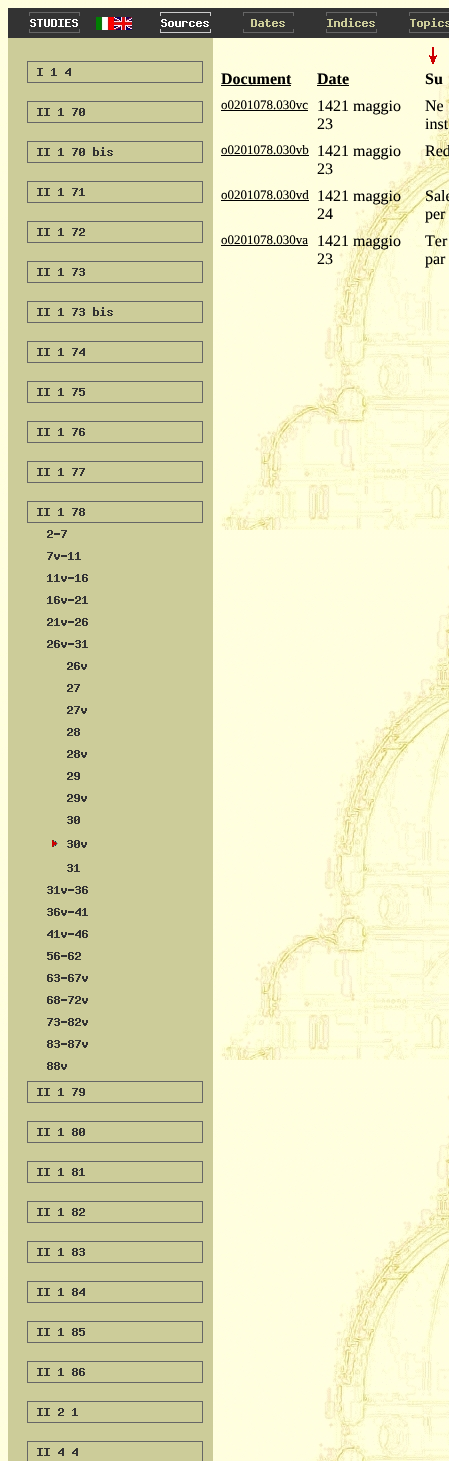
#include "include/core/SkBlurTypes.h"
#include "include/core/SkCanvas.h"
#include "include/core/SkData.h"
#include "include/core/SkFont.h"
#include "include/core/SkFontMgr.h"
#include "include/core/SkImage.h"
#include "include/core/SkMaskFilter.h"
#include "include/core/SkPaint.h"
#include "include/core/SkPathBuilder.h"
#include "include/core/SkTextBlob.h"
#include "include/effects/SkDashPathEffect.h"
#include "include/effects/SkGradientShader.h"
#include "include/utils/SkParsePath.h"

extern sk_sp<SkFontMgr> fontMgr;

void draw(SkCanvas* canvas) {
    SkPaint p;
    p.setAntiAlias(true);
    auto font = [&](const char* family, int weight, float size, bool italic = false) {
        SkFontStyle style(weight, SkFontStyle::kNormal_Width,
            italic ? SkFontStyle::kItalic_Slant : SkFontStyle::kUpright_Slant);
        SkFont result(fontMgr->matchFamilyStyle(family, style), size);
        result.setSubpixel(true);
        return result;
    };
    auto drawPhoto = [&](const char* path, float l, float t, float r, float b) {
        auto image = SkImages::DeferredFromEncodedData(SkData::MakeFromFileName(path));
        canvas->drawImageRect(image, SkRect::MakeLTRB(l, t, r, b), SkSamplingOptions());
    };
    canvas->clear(0xFFFFFFFF);
    drawPhoto("media/1.png", 0, 0, 449, 1461);
    p.setColor(0xFF333333);
    canvas->drawRect(SkRect::MakeLTRB(8, 8, 449, 38), p);
    drawPhoto("media/2.png", 29, 12, 80, 33);
    drawPhoto("media/3.png", 96, 17, 114, 30);
    drawPhoto("media/4.png", 114, 17, 132, 30);
    drawPhoto("media/5.png", 160, 12, 211, 33);
    drawPhoto("media/6.png", 243, 12, 294, 33);
    drawPhoto("media/7.png", 326, 12, 377, 33);
    drawPhoto("media/8.png", 409, 12, 449, 33);
    p.setColor(0xFFCCCC99);
    canvas->drawRect(SkRect::MakeLTRB(8, 38, 213, 1461), p);
    drawPhoto("media/9.png", 27, 61, 203, 83);
    drawPhoto("media/10.png", 27, 101, 203, 123);
    drawPhoto("media/11.png", 27, 141, 203, 163);
    drawPhoto("media/12.png", 27, 181, 203, 203);
    drawPhoto("media/13.png", 27, 221, 203, 243);
    drawPhoto("media/14.png", 27, 261, 203, 283);
    drawPhoto("media/15.png", 27, 301, 203, 323);
    drawPhoto("media/16.png", 27, 341, 203, 363);
    drawPhoto("media/17.png", 27, 381, 203, 403);
    drawPhoto("media/18.png", 27, 421, 203, 443);
    drawPhoto("media/19.png", 27, 461, 203, 483);
    drawPhoto("media/20.png", 27, 501, 203, 523);
    drawPhoto("media/21.png", 47, 530, 67, 538);
    drawPhoto("media/22.png", 47, 552, 81, 560);
    drawPhoto("media/23.png", 47, 574, 88, 582);
    drawPhoto("media/24.png", 47, 596, 88, 604);
    drawPhoto("media/25.png", 47, 618, 88, 626);
    drawPhoto("media/26.png", 47, 640, 88, 648);
    drawPhoto("media/27.png", 67, 662, 87, 670);
    drawPhoto("media/28.png", 67, 684, 80, 692);
    drawPhoto("media/29.png", 67, 706, 87, 714);
    drawPhoto("media/30.png", 67, 728, 80, 736);
    drawPhoto("media/31.png", 67, 750, 87, 758);
    drawPhoto("media/32.png", 67, 772, 80, 780);
    drawPhoto("media/33.png", 67, 794, 87, 802);
    drawPhoto("media/34.png", 67, 816, 80, 824);
    drawPhoto("media/35.png", 52, 840, 87, 848);
    drawPhoto("media/36.png", 67, 864, 80, 872);
    drawPhoto("media/37.png", 47, 886, 88, 894);
    drawPhoto("media/38.png", 47, 908, 88, 916);
    drawPhoto("media/39.png", 47, 930, 88, 938);
    drawPhoto("media/40.png", 47, 952, 81, 960);
    drawPhoto("media/41.png", 47, 974, 88, 982);
    drawPhoto("media/42.png", 47, 996, 88, 1004);
    drawPhoto("media/43.png", 47, 1018, 88, 1026);
    drawPhoto("media/44.png", 47, 1040, 88, 1048);
    drawPhoto("media/45.png", 47, 1062, 67, 1070);
    drawPhoto("media/46.png", 27, 1081, 203, 1103);
    drawPhoto("media/47.png", 27, 1121, 203, 1143);
    drawPhoto("media/48.png", 27, 1161, 203, 1183);
    drawPhoto("media/49.png", 27, 1201, 203, 1223);
    drawPhoto("media/50.png", 27, 1241, 203, 1263);
    drawPhoto("media/51.png", 27, 1281, 203, 1303);
    drawPhoto("media/52.png", 27, 1321, 203, 1343);
    drawPhoto("media/53.png", 27, 1361, 203, 1383);
    drawPhoto("media/54.png", 27, 1401, 203, 1423);
    drawPhoto("media/55.png", 27, 1441, 203, 1461);
    auto font1 = font("Liberation Serif", 700, 16);
    p.setColor(0xFF000000);
    canvas->drawString("Document", 221, 84, font1, p);
    canvas->drawRect(SkRect::MakeLTRB(221, 85, 291, 86), p);
    canvas->drawString("Date", 317, 84, font1, p);
    canvas->drawRect(SkRect::MakeLTRB(317, 85, 349, 86), p);
    drawPhoto("media/56.png", 429, 47, 437, 64);
    canvas->drawString("Su", 425, 84, font1, p);
    auto font2 = font("Liberation Serif", 400, 13);
    canvas->drawString("o0201078.030vc", 221, 109, font2, p);
    canvas->drawRect(SkRect::MakeLTRB(221, 110, 308, 111), p);
    auto font3 = font("Liberation Serif", 400, 16);
    {
        const struct { const char* s; float x, y; } items[] = {
            {"1421 maggio", 317, 111},
            {"23", 317, 129},
            {"Ne", 425, 111},
            {"inst", 425, 129},
        };
        for (auto [s, x, y] : items) {
            canvas->drawString(s, x, y, font3, p);
        }
    }
    canvas->drawString("o0201078.030vb", 221, 154, font2, p);
    canvas->drawRect(SkRect::MakeLTRB(221, 155, 309, 156), p);
    {
        const struct { const char* s; float x, y; } items[] = {
            {"1421 maggio", 317, 156},
            {"23", 317, 174},
            {"Red", 425, 156},
        };
        for (auto [s, x, y] : items) {
            canvas->drawString(s, x, y, font3, p);
        }
    }
    canvas->drawString("o0201078.030vd", 221, 199, font2, p);
    canvas->drawRect(SkRect::MakeLTRB(221, 200, 309, 201), p);
    {
        const struct { const char* s; float x, y; } items[] = {
            {"1421 maggio", 317, 201},
            {"24", 317, 219},
            {"Sale", 425, 201},
            {"per", 425, 219},
        };
        for (auto [s, x, y] : items) {
            canvas->drawString(s, x, y, font3, p);
        }
    }
    canvas->drawString("o0201078.030va", 221, 244, font2, p);
    canvas->drawRect(SkRect::MakeLTRB(221, 245, 308, 246), p);
    {
        const struct { const char* s; float x, y; } items[] = {
            {"1421 maggio", 317, 246},
            {"23", 317, 264},
            {"Ter", 425, 246},
            {"par", 425, 264},
        };
        for (auto [s, x, y] : items) {
            canvas->drawString(s, x, y, font3, p);
        }
    }
}
